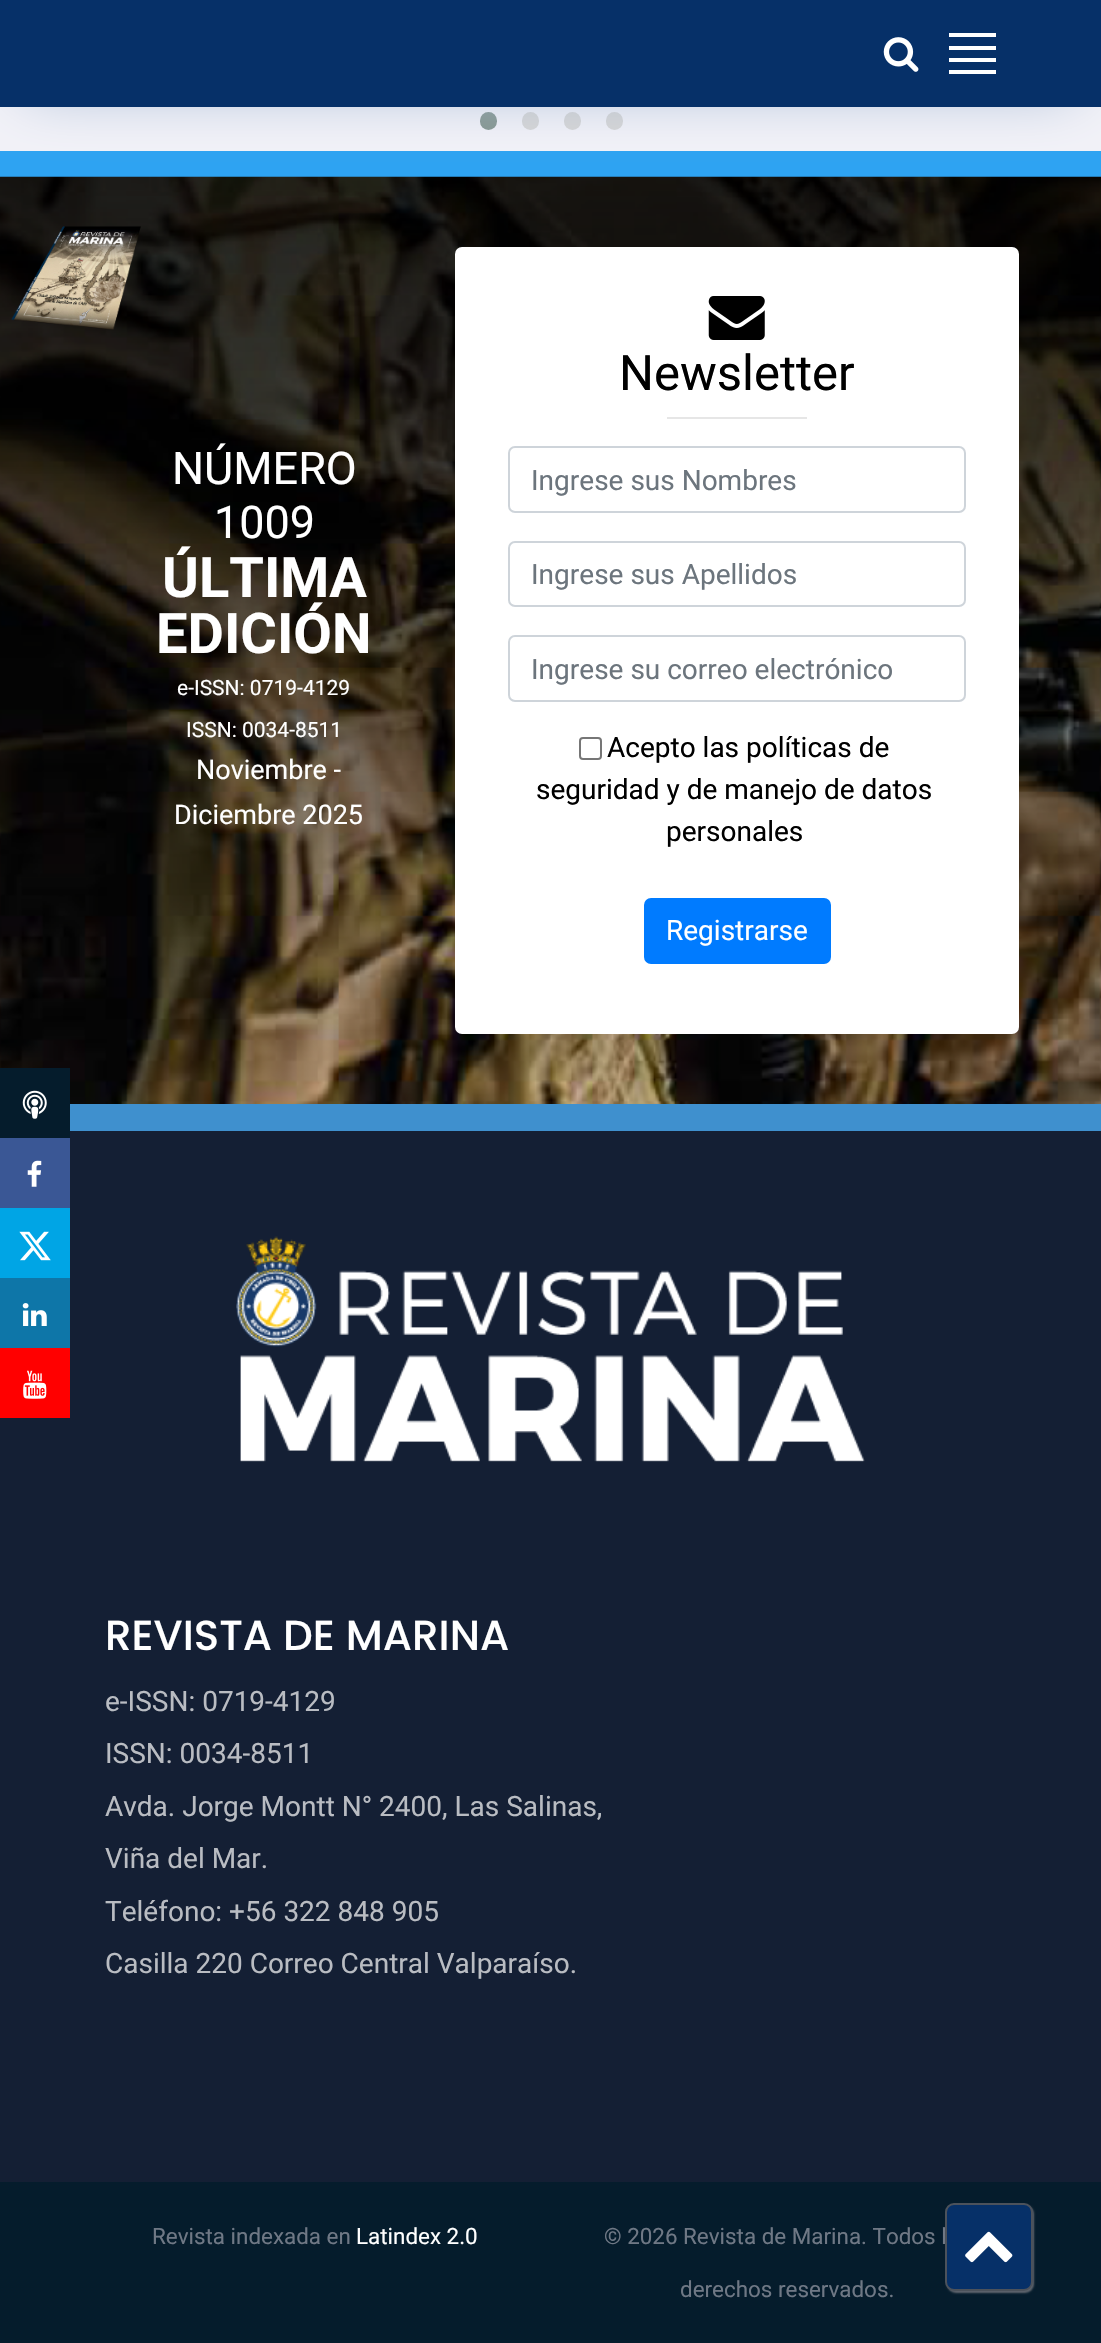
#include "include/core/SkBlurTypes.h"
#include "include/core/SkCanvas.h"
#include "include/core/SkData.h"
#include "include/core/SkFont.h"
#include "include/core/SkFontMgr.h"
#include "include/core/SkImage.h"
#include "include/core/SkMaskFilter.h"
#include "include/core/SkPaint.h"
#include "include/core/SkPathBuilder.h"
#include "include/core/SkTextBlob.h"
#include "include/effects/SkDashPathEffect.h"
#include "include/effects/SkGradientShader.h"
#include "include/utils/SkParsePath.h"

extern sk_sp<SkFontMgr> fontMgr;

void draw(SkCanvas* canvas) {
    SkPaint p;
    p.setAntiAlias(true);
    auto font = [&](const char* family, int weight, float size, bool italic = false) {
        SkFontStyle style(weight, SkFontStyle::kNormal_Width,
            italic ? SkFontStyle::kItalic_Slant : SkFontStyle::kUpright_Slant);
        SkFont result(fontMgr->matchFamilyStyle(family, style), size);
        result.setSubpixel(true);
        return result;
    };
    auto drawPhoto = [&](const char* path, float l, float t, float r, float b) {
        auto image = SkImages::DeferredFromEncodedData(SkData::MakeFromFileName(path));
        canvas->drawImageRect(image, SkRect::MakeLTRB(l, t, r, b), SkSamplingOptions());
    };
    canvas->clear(0xFFF2F2F8);
    p.setColor(0xFF869791);
    canvas->drawRoundRect(SkRect::MakeLTRB(480, 112, 497, 130), 8.5f, 8.5f, p);
    p.setColor(0xFFD6D6D6);
    canvas->drawRoundRect(SkRect::MakeLTRB(522, 112, 539, 130), 8.5f, 8.5f, p);
    canvas->drawRoundRect(SkRect::MakeLTRB(564, 112, 581, 130), 8.5f, 8.5f, p);
    canvas->drawRoundRect(SkRect::MakeLTRB(606, 112, 623, 130), 8.5f, 8.5f, p);
    p.setColor(0xFF2EA3F2);
    canvas->drawRect(SkRect::MakeLTRB(0, 151, 1101, 177), p);
    drawPhoto("media/7.png", 0, 176, 1101, 1104);
    p.setColor(0xFF9CB1CF);
    p.setMaskFilter(SkMaskFilter::MakeBlur(kNormal_SkBlurStyle, 30.5f));
    canvas->drawRect(SkRect::MakeLTRB(26, 35, 1076, 89), p);
    p.setMaskFilter(nullptr);
    p.setColor(0xFF063068);
    canvas->drawRect(SkRect::MakeLTRB(0, 0, 1101, 107), p);
    drawPhoto("media/1.png", 883, 37, 919, 72);
    {
        const struct { float l, t, r, b; SkColor color; } items[] = {
            {949, 33, 996, 37, 0xFFFFFFFF},
            {949, 46, 996, 50, 0xFFFFFFFF},
            {949, 58, 996, 62, 0xFFFFFFFF},
            {949, 70, 996, 74, 0xFFFFFFFF},
            {0, 1131, 1101, 2182, 0xFF141F34},
            {0, 1068, 70, 1138, 0xFF051C2C},
        };
        for (auto [l, t, r, b, color] : items) {
            p.setColor(color);
            canvas->drawRect(SkRect::MakeLTRB(l, t, r, b), p);
        }
    }
    drawPhoto("media/2.png", 22, 1090, 47, 1119);
    p.setColor(0xFF3A5795);
    canvas->drawRect(SkRect::MakeLTRB(0, 1138, 70, 1208), p);
    drawPhoto("media/3.png", 27, 1160, 42, 1187);
    p.setColor(0xFF00A5E5);
    canvas->drawRect(SkRect::MakeLTRB(0, 1208, 70, 1278), p);
    drawPhoto("media/4.png", 19, 1231, 51, 1261);
    p.setColor(0xFF0E76A8);
    canvas->drawRect(SkRect::MakeLTRB(0, 1278, 70, 1348), p);
    drawPhoto("media/5.png", 22, 1303, 47, 1326);
    p.setColor(0xFFFF0000);
    canvas->drawRect(SkRect::MakeLTRB(0, 1348, 70, 1418), p);
    drawPhoto("media/6.png", 23, 1370, 47, 1399);
    p.setColor(0xFF3F90CE);
    canvas->drawRect(SkRect::MakeLTRB(70, 1104, 1101, 1131), p);
    drawPhoto("media/8.png", 11, 226, 141, 330);
    auto font1 = font("Roboto", 400, 45);
    p.setColor(0xFFFFFFFF);
    canvas->drawString("NÚMERO", 172, 484, font1, p);
    canvas->drawString("1009", 214, 538, font1, p);
    auto font2 = font("Roboto", 700, 56);
    canvas->drawString("ÚLTIMA", 162, 597, font2, p);
    canvas->drawString("EDICIÓN", 156, 653, font2, p);
    auto font3 = font("Roboto", 400, 21);
    canvas->drawString("e-ISSN: 0719-4129", 177, 695, font3, p);
    canvas->drawString("ISSN: 0034-8511", 186, 737, font3, p);
    auto font4 = font("Roboto", 400, 27);
    canvas->drawString("Noviembre -", 196, 779, font4, p);
    canvas->drawString("Diciembre 2025", 174, 824, font4, p);
    canvas->drawRoundRect(SkRect::MakeLTRB(455, 247, 1019, 1034), 7, 7, p);
    drawPhoto("media/9.png", 708, 296, 765, 340);
    auto font5 = font("Roboto", 400, 49);
    p.setColor(0xFF000000);
    canvas->drawString("Newsletter", 619, 390, font5, p);
    p.setColor(0xFFE6E6E6);
    canvas->drawRect(SkRect::MakeLTRB(667, 417, 807, 419), p);
    p.setStyle(SkPaint::kStroke_Style);
    p.setStrokeWidth(2);
    p.setColor(0xFFCED4DA);
    canvas->drawRoundRect(SkRect::MakeLTRB(509, 447, 965, 512), 6, 6, p);
    auto font6 = font("Roboto", 400, 28);
    p.setStyle(SkPaint::kFill_Style);
    p.setColor(0xFF6C757D);
    canvas->drawString("Ingrese sus Nombres", 531, 490, font6, p);
    p.setStyle(SkPaint::kStroke_Style);
    p.setColor(0xFFCED4DA);
    canvas->drawRoundRect(SkRect::MakeLTRB(509, 542, 965, 606), 6, 6, p);
    p.setStyle(SkPaint::kFill_Style);
    p.setColor(0xFF6C757D);
    canvas->drawString("Ingrese sus Apellidos", 531, 584, font6, p);
    p.setStyle(SkPaint::kStroke_Style);
    p.setColor(0xFFCED4DA);
    canvas->drawRoundRect(SkRect::MakeLTRB(509, 636, 965, 701), 6, 6, p);
    p.setStyle(SkPaint::kFill_Style);
    p.setColor(0xFF6C757D);
    canvas->drawString("Ingrese su correo electrónico", 531, 679, font6, p);
    p.setStyle(SkPaint::kStroke_Style);
    p.setColor(0xFF767676);
    canvas->drawRoundRect(SkRect::MakeLTRB(580, 738, 601, 759), 3, 3, p);
    p.setStyle(SkPaint::kFill_Style);
    p.setColor(0xFF000000);
    {
        const struct { const char* s; float x, y; } items[] = {
            {"Acepto las políticas de", 607, 757},
            {"seguridad y de manejo de datos", 536, 799},
            {"personales", 666, 841},
        };
        for (auto [s, x, y] : items) {
            canvas->drawString(s, x, y, font6, p);
        }
    }
    p.setColor(0xFF007BFF);
    canvas->drawRoundRect(SkRect::MakeLTRB(645, 899, 830, 963), 6, 6, p);
    p.setStyle(SkPaint::kStroke_Style);
    canvas->drawRoundRect(SkRect::MakeLTRB(645, 899, 830, 963), 6, 6, p);
    p.setStyle(SkPaint::kFill_Style);
    p.setColor(0xFFFFFFFF);
    canvas->drawString("Registrarse", 666, 940, font6, p);
    drawPhoto("media/10.png", 236, 1236, 865, 1462);
    auto font7 = font("Poppins", 500, 42);
    canvas->drawString("REVISTA DE MARINA", 105, 1650, font7, p);
    p.setColor(0xFFB9BCC2);
    {
        const struct { const char* s; float x, y; } items[] = {
            {"e-ISSN: 0719-4129", 105, 1711},
            {"ISSN: 0034-8511", 105, 1763},
            {"Avda. Jorge Montt N° 2400, Las Salinas,", 105, 1816},
            {"Viña del Mar.", 105, 1868},
            {"Teléfono: +56 322 848 905", 105, 1921},
            {"Casilla 220 Correo Central Valparaíso.", 105, 1973},
        };
        for (auto [s, x, y] : items) {
            canvas->drawString(s, x, y, font6, p);
        }
    }
    p.setColor(0xFF051C2C);
    canvas->drawRect(SkRect::MakeLTRB(0, 2182, 1101, 2343), p);
    auto font8 = font("Roboto", 400, 22.4f);
    p.setColor(0xFF6F7885);
    canvas->drawString("Revista indexada en", 152, 2244, font8, p);
    p.setColor(0xFFFFFFFF);
    canvas->drawString("Latindex 2.0", 356, 2244, font8, p);
    p.setColor(0xFF6F7885);
    canvas->drawString("© 2026 Revista de Marina. Todos l", 604, 2244, font8, p);
    canvas->drawString("derechos reservados.", 680, 2297, font8, p);
    p.setColor(0xFF5E646D);
    p.setMaskFilter(SkMaskFilter::MakeBlur(kNormal_SkBlurStyle, 1));
    canvas->drawRoundRect(SkRect::MakeLTRB(947, 2205, 1034, 2293), 9, 9, p);
    p.setMaskFilter(nullptr);
    p.setColor(0xFF063068);
    canvas->drawRoundRect(SkRect::MakeLTRB(946, 2204, 1032, 2290), 8, 8, p);
    p.setStyle(SkPaint::kStroke_Style);
    p.setColor(0xFF4C525B);
    canvas->drawRoundRect(SkRect::MakeLTRB(946, 2204, 1032, 2290), 8, 8, p);
    drawPhoto("media/11.png", 965, 2231, 1013, 2263);
}
